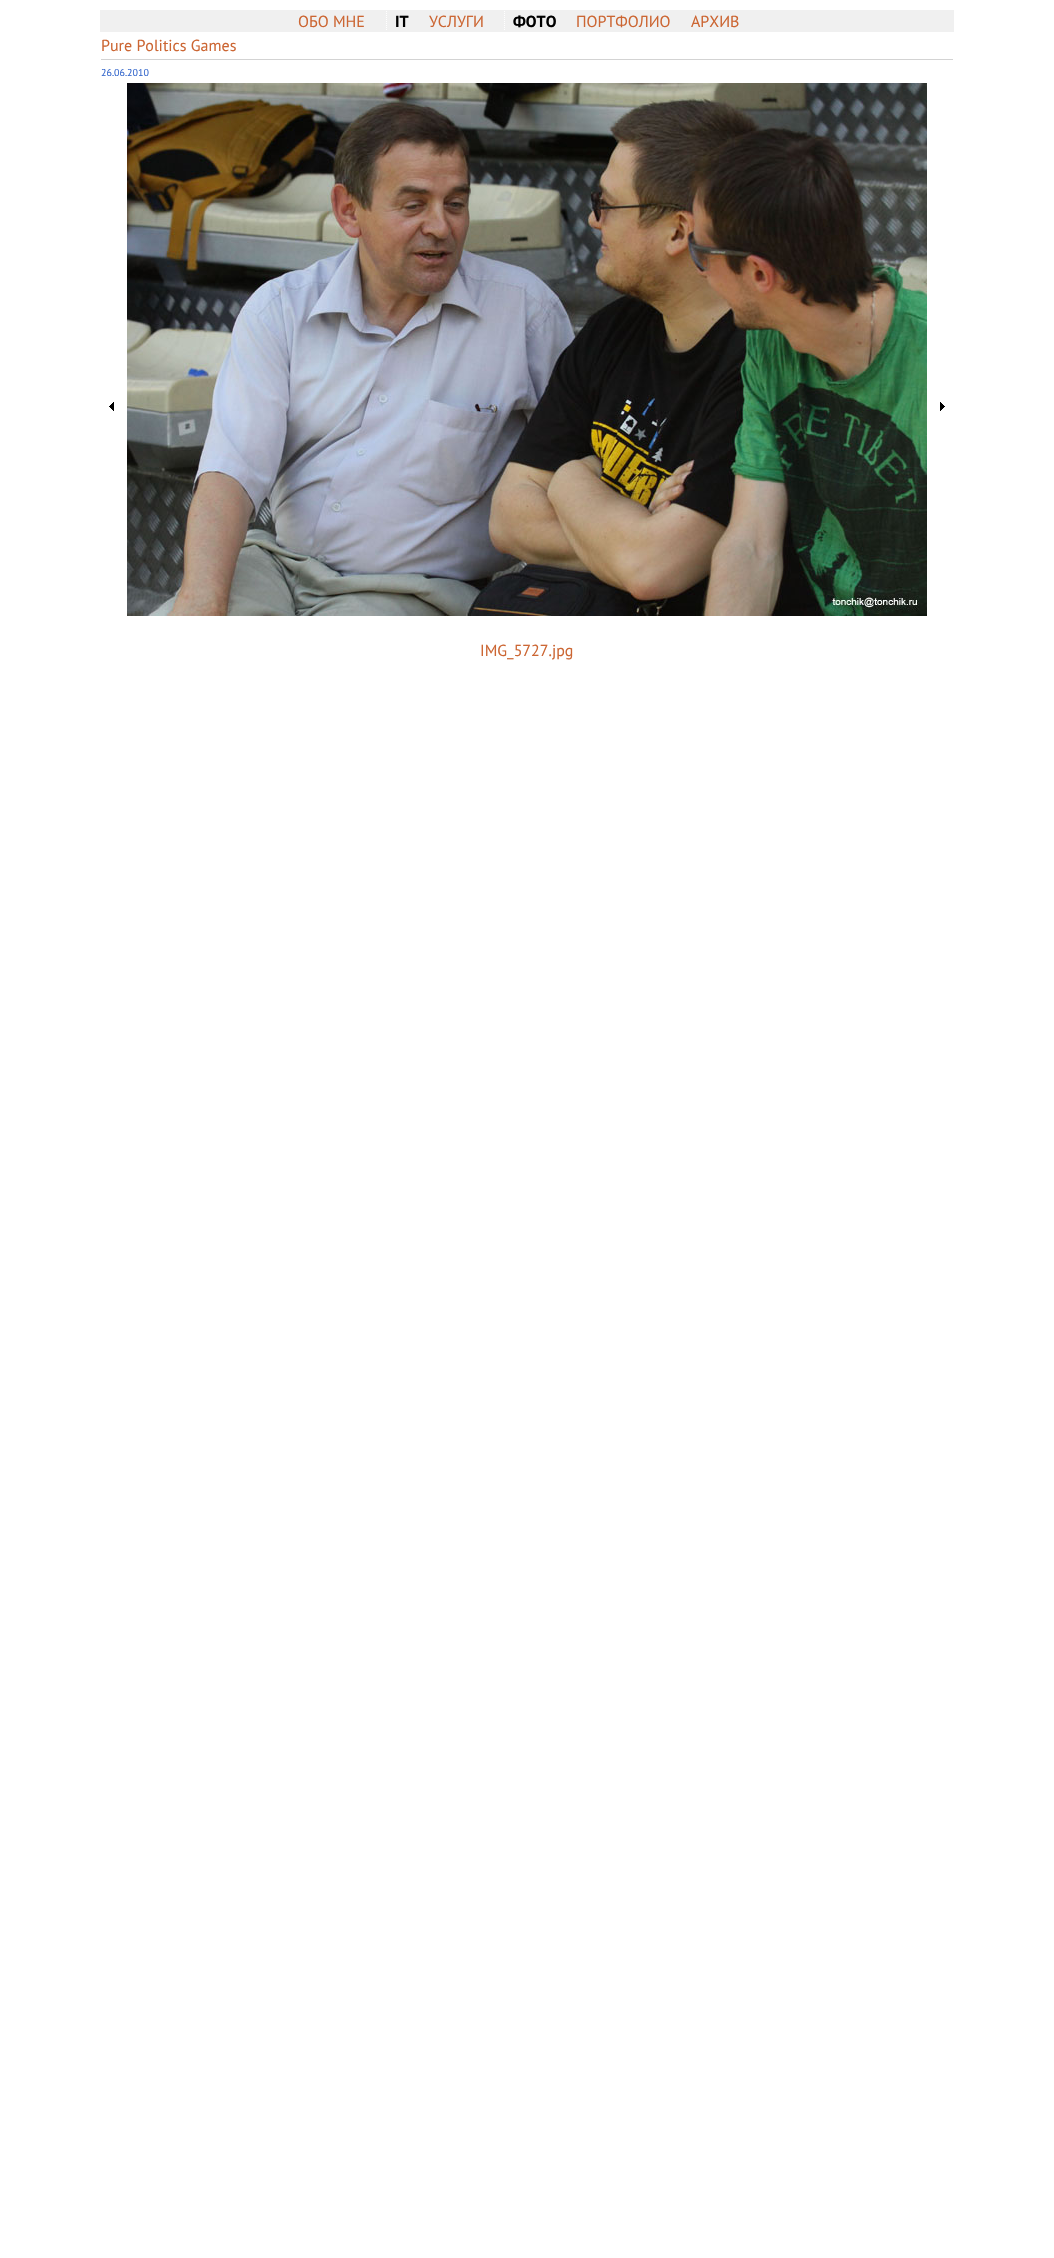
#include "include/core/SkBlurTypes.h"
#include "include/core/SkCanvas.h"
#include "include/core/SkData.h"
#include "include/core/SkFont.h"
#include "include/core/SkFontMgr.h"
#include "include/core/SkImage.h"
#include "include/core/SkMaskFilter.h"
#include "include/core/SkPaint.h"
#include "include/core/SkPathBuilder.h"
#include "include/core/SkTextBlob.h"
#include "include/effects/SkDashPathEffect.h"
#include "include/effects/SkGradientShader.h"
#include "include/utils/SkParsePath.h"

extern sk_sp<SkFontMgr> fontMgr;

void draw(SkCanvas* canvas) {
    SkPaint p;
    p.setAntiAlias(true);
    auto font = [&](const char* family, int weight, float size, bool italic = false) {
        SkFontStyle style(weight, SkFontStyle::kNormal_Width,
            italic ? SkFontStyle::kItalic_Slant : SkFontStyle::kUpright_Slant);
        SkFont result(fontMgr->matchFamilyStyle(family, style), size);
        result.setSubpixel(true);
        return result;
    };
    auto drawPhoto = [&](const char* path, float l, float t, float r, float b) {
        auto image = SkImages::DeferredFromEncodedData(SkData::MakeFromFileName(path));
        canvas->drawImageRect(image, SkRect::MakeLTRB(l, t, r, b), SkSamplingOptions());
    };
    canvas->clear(0xFFFFFFFF);
    p.setColor(0xFFF0F0F0);
    canvas->drawRect(SkRect::MakeLTRB(100, 10, 954, 32), p);
    auto font1 = font("PT Sans", 400, 16);
    p.setColor(0xFFCC6633);
    canvas->drawString("ОБО МНЕ", 298, 27, font1, p);
    p.setStyle(SkPaint::kStroke_Style);
    p.setStrokeWidth(1);
    p.setColor(0xFFFFFFFF);
    p.setPathEffect(SkDashPathEffect::Make({{1, 1}}, 0));
    canvas->drawPath(SkPathBuilder().moveTo(386.5f, 11).lineTo(386.5f, 31).detach(), p);
    p.setPathEffect(nullptr);
    auto font2 = font("PT Sans", 700, 16);
    p.setStyle(SkPaint::kFill_Style);
    p.setColor(0xFF000000);
    canvas->drawString("IT", 395, 27, font2, p);
    p.setColor(0xFFCC6633);
    canvas->drawString("УСЛУГИ", 429, 27, font1, p);
    p.setStyle(SkPaint::kStroke_Style);
    p.setColor(0xFFFFFFFF);
    p.setPathEffect(SkDashPathEffect::Make({{1, 1}}, 0));
    canvas->drawPath(SkPathBuilder().moveTo(504.5f, 11).lineTo(504.5f, 31).detach(), p);
    p.setPathEffect(nullptr);
    p.setStyle(SkPaint::kFill_Style);
    p.setColor(0xFF000000);
    canvas->drawString("ФОТО", 513, 27, font2, p);
    p.setColor(0xFFCC6633);
    canvas->drawString("ПОРТФОЛИО", 576, 27, font1, p);
    canvas->drawString("АРХИВ", 691, 27, font1, p);
    p.setColor(0xFFD3D3D3);
    canvas->drawRect(SkRect::MakeLTRB(101, 59, 953, 60), p);
    p.setColor(0xFFCC6633);
    canvas->drawString("Pure Politics Games", 101, 51, font1, p);
    auto font3 = font("PT Sans", 400, 10);
    p.setColor(0xFF3366CC);
    canvas->drawString("26.06.2010", 101, 76, font3, p);
    drawPhoto("media/1.png", 109, 402, 114, 411);
    drawPhoto("media/2.png", 940, 402, 945, 411);
    drawPhoto("media/3.png", 127, 83, 927, 616);
    p.setColor(0xFFCC6633);
    canvas->drawString("IMG_5727.jpg", 480, 656, font1, p);
}
